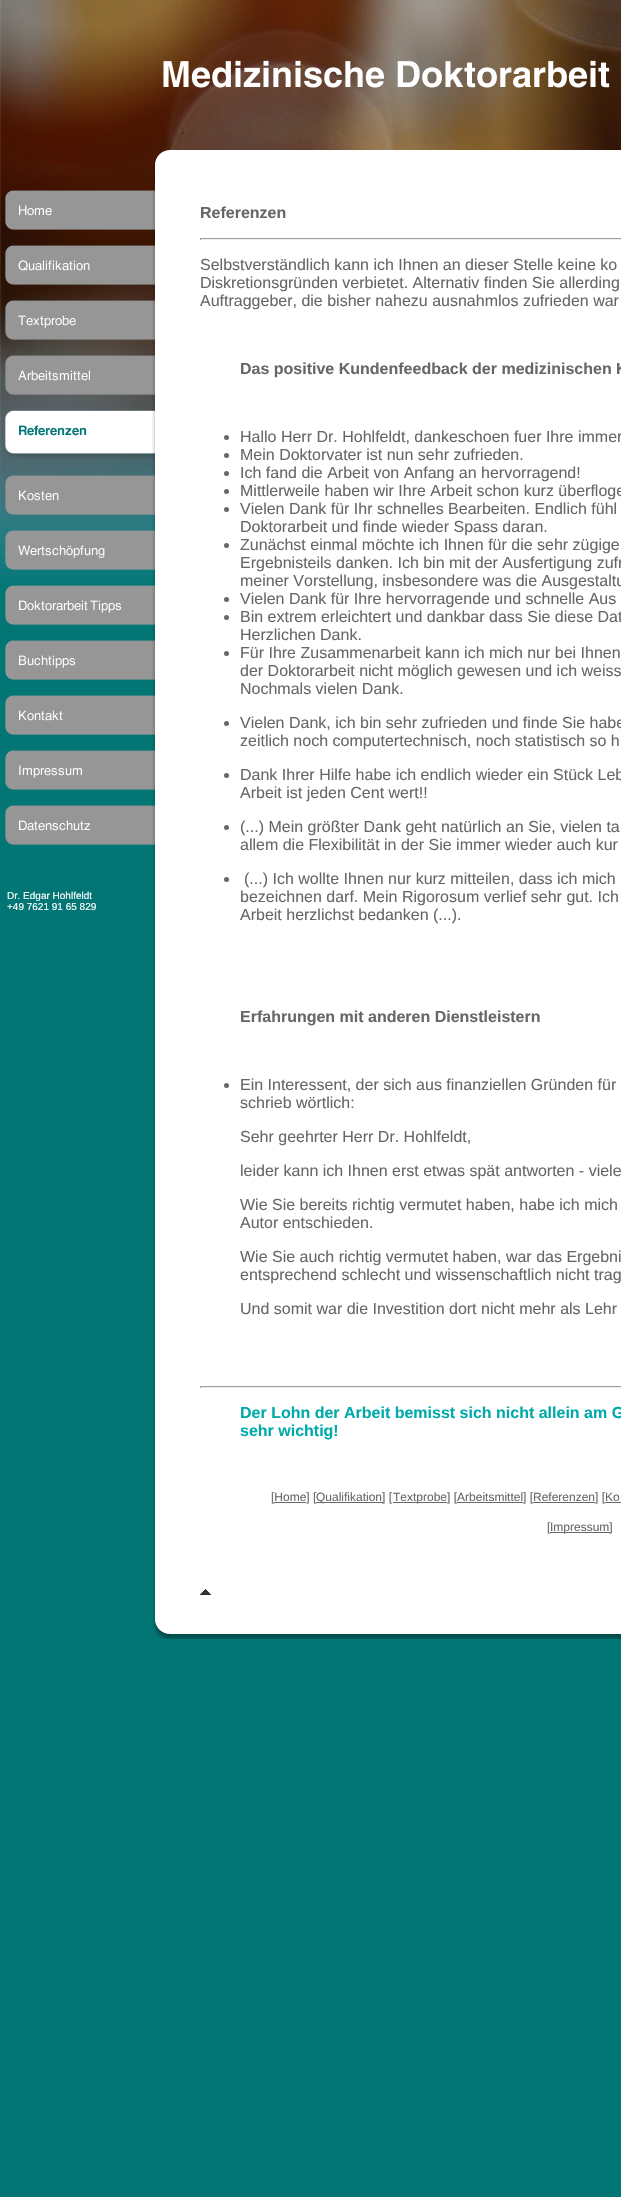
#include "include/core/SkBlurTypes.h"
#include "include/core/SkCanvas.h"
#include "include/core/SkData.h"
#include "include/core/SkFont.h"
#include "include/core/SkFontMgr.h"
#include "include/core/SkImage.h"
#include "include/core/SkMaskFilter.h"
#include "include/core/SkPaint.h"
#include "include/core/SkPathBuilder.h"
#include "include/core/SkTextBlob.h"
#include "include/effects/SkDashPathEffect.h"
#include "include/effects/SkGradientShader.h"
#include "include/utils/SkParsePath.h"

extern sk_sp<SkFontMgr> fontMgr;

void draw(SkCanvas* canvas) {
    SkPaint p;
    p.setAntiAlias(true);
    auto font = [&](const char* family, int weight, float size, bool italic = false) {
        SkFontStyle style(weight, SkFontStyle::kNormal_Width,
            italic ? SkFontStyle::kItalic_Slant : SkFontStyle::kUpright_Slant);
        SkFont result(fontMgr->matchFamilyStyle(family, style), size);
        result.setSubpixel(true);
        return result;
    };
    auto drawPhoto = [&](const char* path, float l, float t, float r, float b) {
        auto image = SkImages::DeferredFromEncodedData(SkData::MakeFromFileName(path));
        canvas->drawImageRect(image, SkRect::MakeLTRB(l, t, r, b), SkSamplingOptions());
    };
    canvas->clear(0xFF027675);
    drawPhoto("media/1.png", 0, 0, 621, 584);
    drawPhoto("media/2.png", 163, 60, 610, 88);
    drawPhoto("media/3.png", 5, 190, 155, 230);
    drawPhoto("media/4.png", 5, 245, 155, 285);
    drawPhoto("media/5.png", 5, 300, 155, 340);
    drawPhoto("media/6.png", 5, 355, 155, 395);
    drawPhoto("media/7.png", 5, 410, 155, 445);
    drawPhoto("media/8.png", 5, 445, 155, 459);
    drawPhoto("media/9.png", 5, 475, 155, 515);
    drawPhoto("media/10.png", 5, 530, 155, 570);
    drawPhoto("media/11.png", 5, 585, 155, 625);
    drawPhoto("media/12.png", 5, 640, 155, 680);
    drawPhoto("media/13.png", 5, 695, 155, 735);
    drawPhoto("media/14.png", 5, 750, 155, 790);
    drawPhoto("media/15.png", 5, 805, 155, 845);
    auto font1 = font("Liberation Sans", 400, 10);
    p.setColor(0xFFFFFFFF);
    canvas->drawString("Dr. Edgar Hohlfeldt", 7, 899, font1, p);
    canvas->drawString("+49 7621 91 65 829", 7, 910, font1, p);
    drawPhoto("media/16.png", 154, 150, 180, 166);
    canvas->drawRect(SkRect::MakeLTRB(180, 150, 621, 1619), p);
    drawPhoto("media/17.png", 152, 166, 180, 1619);
    auto font2 = font("Liberation Sans", 700, 16);
    p.setColor(0xFF676767);
    canvas->drawString("Referenzen", 200, 218, font2, p);
    {
        const struct { float l, t, r, b; SkColor color; } items[] = {
            {200, 238, 621, 239, 0xFF9F9F9F},
            {200, 239, 621, 240, 0xFFEEEEEE},
            {200, 238, 201, 240, 0xFF9F9F9F},
        };
        for (auto [l, t, r, b, color] : items) {
            p.setColor(color);
            canvas->drawRect(SkRect::MakeLTRB(l, t, r, b), p);
        }
    }
    auto font3 = font("Liberation Sans", 400, 16);
    p.setColor(0xFF676767);
    {
        const struct { const char* s; float x, y; } items[] = {
            {"Selbstverständlich kann ich Ihnen an dieser Stelle keine ko", 200, 270},
            {"Diskretionsgründen verbietet. Alternativ finden Sie allerding", 200, 288},
            {"Auftraggeber, die bisher nahezu ausnahmlos zufrieden war", 200, 306},
        };
        for (auto [s, x, y] : items) {
            canvas->drawString(s, x, y, font3, p);
        }
    }
    canvas->drawString("Das positive Kundenfeedback der medizinischen K", 240, 374, font2, p);
    canvas->drawCircle(226.5f, 437.5f, 2.5f, p);
    canvas->drawString("Hallo Herr Dr. Hohlfeldt, dankeschoen fuer Ihre immer", 240, 442, font3, p);
    canvas->drawCircle(226.5f, 455.5f, 2.5f, p);
    canvas->drawString("Mein Doktorvater ist nun sehr zufrieden.", 240, 460, font3, p);
    canvas->drawCircle(226.5f, 473.5f, 2.5f, p);
    canvas->drawString("Ich fand die Arbeit von Anfang an hervorragend!", 240, 478, font3, p);
    canvas->drawCircle(226.5f, 491.5f, 2.5f, p);
    canvas->drawString("Mittlerweile haben wir Ihre Arbeit schon kurz überfloge", 240, 496, font3, p);
    canvas->drawCircle(226.5f, 509.5f, 2.5f, p);
    canvas->drawString("Vielen Dank für Ihr schnelles Bearbeiten. Endlich fühl", 240, 514, font3, p);
    canvas->drawString("Doktorarbeit und finde wieder Spass daran.", 240, 532, font3, p);
    canvas->drawCircle(226.5f, 545.5f, 2.5f, p);
    {
        const struct { const char* s; float x, y; } items[] = {
            {"Zunächst einmal möchte ich Ihnen für die sehr zügige", 240, 550},
            {"Ergebnisteils danken. Ich bin mit der Ausfertigung zufr", 240, 568},
            {"meiner Vorstellung, insbesondere was die Ausgestaltu", 240, 586},
        };
        for (auto [s, x, y] : items) {
            canvas->drawString(s, x, y, font3, p);
        }
    }
    canvas->drawCircle(226.5f, 599.5f, 2.5f, p);
    canvas->drawString("Vielen Dank für Ihre hervorragende und schnelle Aus", 240, 604, font3, p);
    canvas->drawCircle(226.5f, 617.5f, 2.5f, p);
    canvas->drawString("Bin extrem erleichtert und dankbar dass Sie diese Dat", 240, 622, font3, p);
    canvas->drawString("Herzlichen Dank.", 240, 640, font3, p);
    canvas->drawCircle(226.5f, 653.5f, 2.5f, p);
    {
        const struct { const char* s; float x, y; } items[] = {
            {"Für Ihre Zusammenarbeit kann ich mich nur bei Ihnen", 240, 658},
            {"der Doktorarbeit nicht möglich gewesen und ich weiss", 240, 676},
            {"Nochmals vielen Dank.", 240, 694},
        };
        for (auto [s, x, y] : items) {
            canvas->drawString(s, x, y, font3, p);
        }
    }
    canvas->drawCircle(226.5f, 723.5f, 2.5f, p);
    canvas->drawString("Vielen Dank, ich bin sehr zufrieden und finde Sie habe", 240, 728, font3, p);
    canvas->drawString("zeitlich noch computertechnisch, noch statistisch so h", 240, 746, font3, p);
    canvas->drawCircle(226.5f, 775.5f, 2.5f, p);
    canvas->drawString("Dank Ihrer Hilfe habe ich endlich wieder ein Stück Leb", 240, 780, font3, p);
    canvas->drawString("Arbeit ist jeden Cent wert!!", 240, 798, font3, p);
    canvas->drawCircle(226.5f, 827.5f, 2.5f, p);
    canvas->drawString("(...) Mein größter Dank geht natürlich an Sie, vielen ta", 240, 832, font3, p);
    canvas->drawString("allem die Flexibilität in der Sie immer wieder auch kur", 240, 850, font3, p);
    canvas->drawCircle(226.5f, 879.5f, 2.5f, p);
    {
        const struct { const char* s; float x, y; } items[] = {
            {"(...) Ich wollte Ihnen nur kurz mitteilen, dass ich mich", 244, 884},
            {"bezeichnen darf. Mein Rigorosum verlief sehr gut. Ich", 240, 902},
            {"Arbeit herzlichst bedanken (...).", 240, 920},
        };
        for (auto [s, x, y] : items) {
            canvas->drawString(s, x, y, font3, p);
        }
    }
    canvas->drawString("Erfahrungen mit anderen Dienstleistern", 240, 1022, font2, p);
    canvas->drawCircle(226.5f, 1085.5f, 2.5f, p);
    {
        const struct { const char* s; float x, y; } items[] = {
            {"Ein Interessent, der sich aus finanziellen Gründen für", 240, 1090},
            {"schrieb wörtlich:", 240, 1108},
            {"Sehr geehrter Herr Dr. Hohlfeldt,", 240, 1142},
            {"leider kann ich Ihnen erst etwas spät antworten - viele", 240, 1176},
            {"Wie Sie bereits richtig vermutet haben, habe ich mich", 240, 1210},
            {"Autor entschieden.", 240, 1228},
            {"Wie Sie auch richtig vermutet haben, war das Ergebni", 240, 1262},
            {"entsprechend schlecht und wissenschaftlich nicht trag", 240, 1280},
            {"Und somit war die Investition dort nicht mehr als Lehr", 240, 1314},
        };
        for (auto [s, x, y] : items) {
            canvas->drawString(s, x, y, font3, p);
        }
    }
    {
        const struct { float l, t, r, b; SkColor color; } items[] = {
            {200, 1386, 621, 1387, 0xFF9F9F9F},
            {200, 1387, 621, 1388, 0xFFEEEEEE},
            {200, 1386, 201, 1388, 0xFF9F9F9F},
        };
        for (auto [l, t, r, b, color] : items) {
            p.setColor(color);
            canvas->drawRect(SkRect::MakeLTRB(l, t, r, b), p);
        }
    }
    p.setColor(0xFF00AAAA);
    canvas->drawString("Der Lohn der Arbeit bemisst sich nicht allein am G", 240, 1418, font2, p);
    canvas->drawString("sehr wichtig!", 240, 1436, font2, p);
    auto font4 = font("Liberation Sans", 400, 12);
    p.setColor(0xFF676767);
    canvas->drawString("[Home] [", 271, 1501, font4, p);
    canvas->drawRect(SkRect::MakeLTRB(274, 1502, 306, 1503), p);
    canvas->drawRect(SkRect::MakeLTRB(316, 1502, 383, 1503), p);
    canvas->drawString("Qualifikation] [", 316, 1501, font4, p);
    canvas->drawRect(SkRect::MakeLTRB(393, 1502, 447, 1503), p);
    canvas->drawString("Textprobe] [Arbeitsmittel", 393, 1501, font4, p);
    canvas->drawRect(SkRect::MakeLTRB(457, 1502, 523, 1503), p);
    canvas->drawString("] [Referenzen", 523, 1501, font4, p);
    canvas->drawRect(SkRect::MakeLTRB(533, 1502, 595, 1503), p);
    canvas->drawString("] [Ko", 595, 1501, font4, p);
    canvas->drawRect(SkRect::MakeLTRB(605, 1502, 621, 1503), p);
    canvas->drawString("[", 547, 1531, font4, p);
    canvas->drawRect(SkRect::MakeLTRB(550, 1532, 610, 1533), p);
    canvas->drawString("Impressum]", 550, 1531, font4, p);
    drawPhoto("media/18.png", 200, 1589, 211, 1595);
    drawPhoto("media/19.png", 152, 1619, 180, 1639);
    drawPhoto("media/20.png", 180, 1619, 621, 1639);
}
